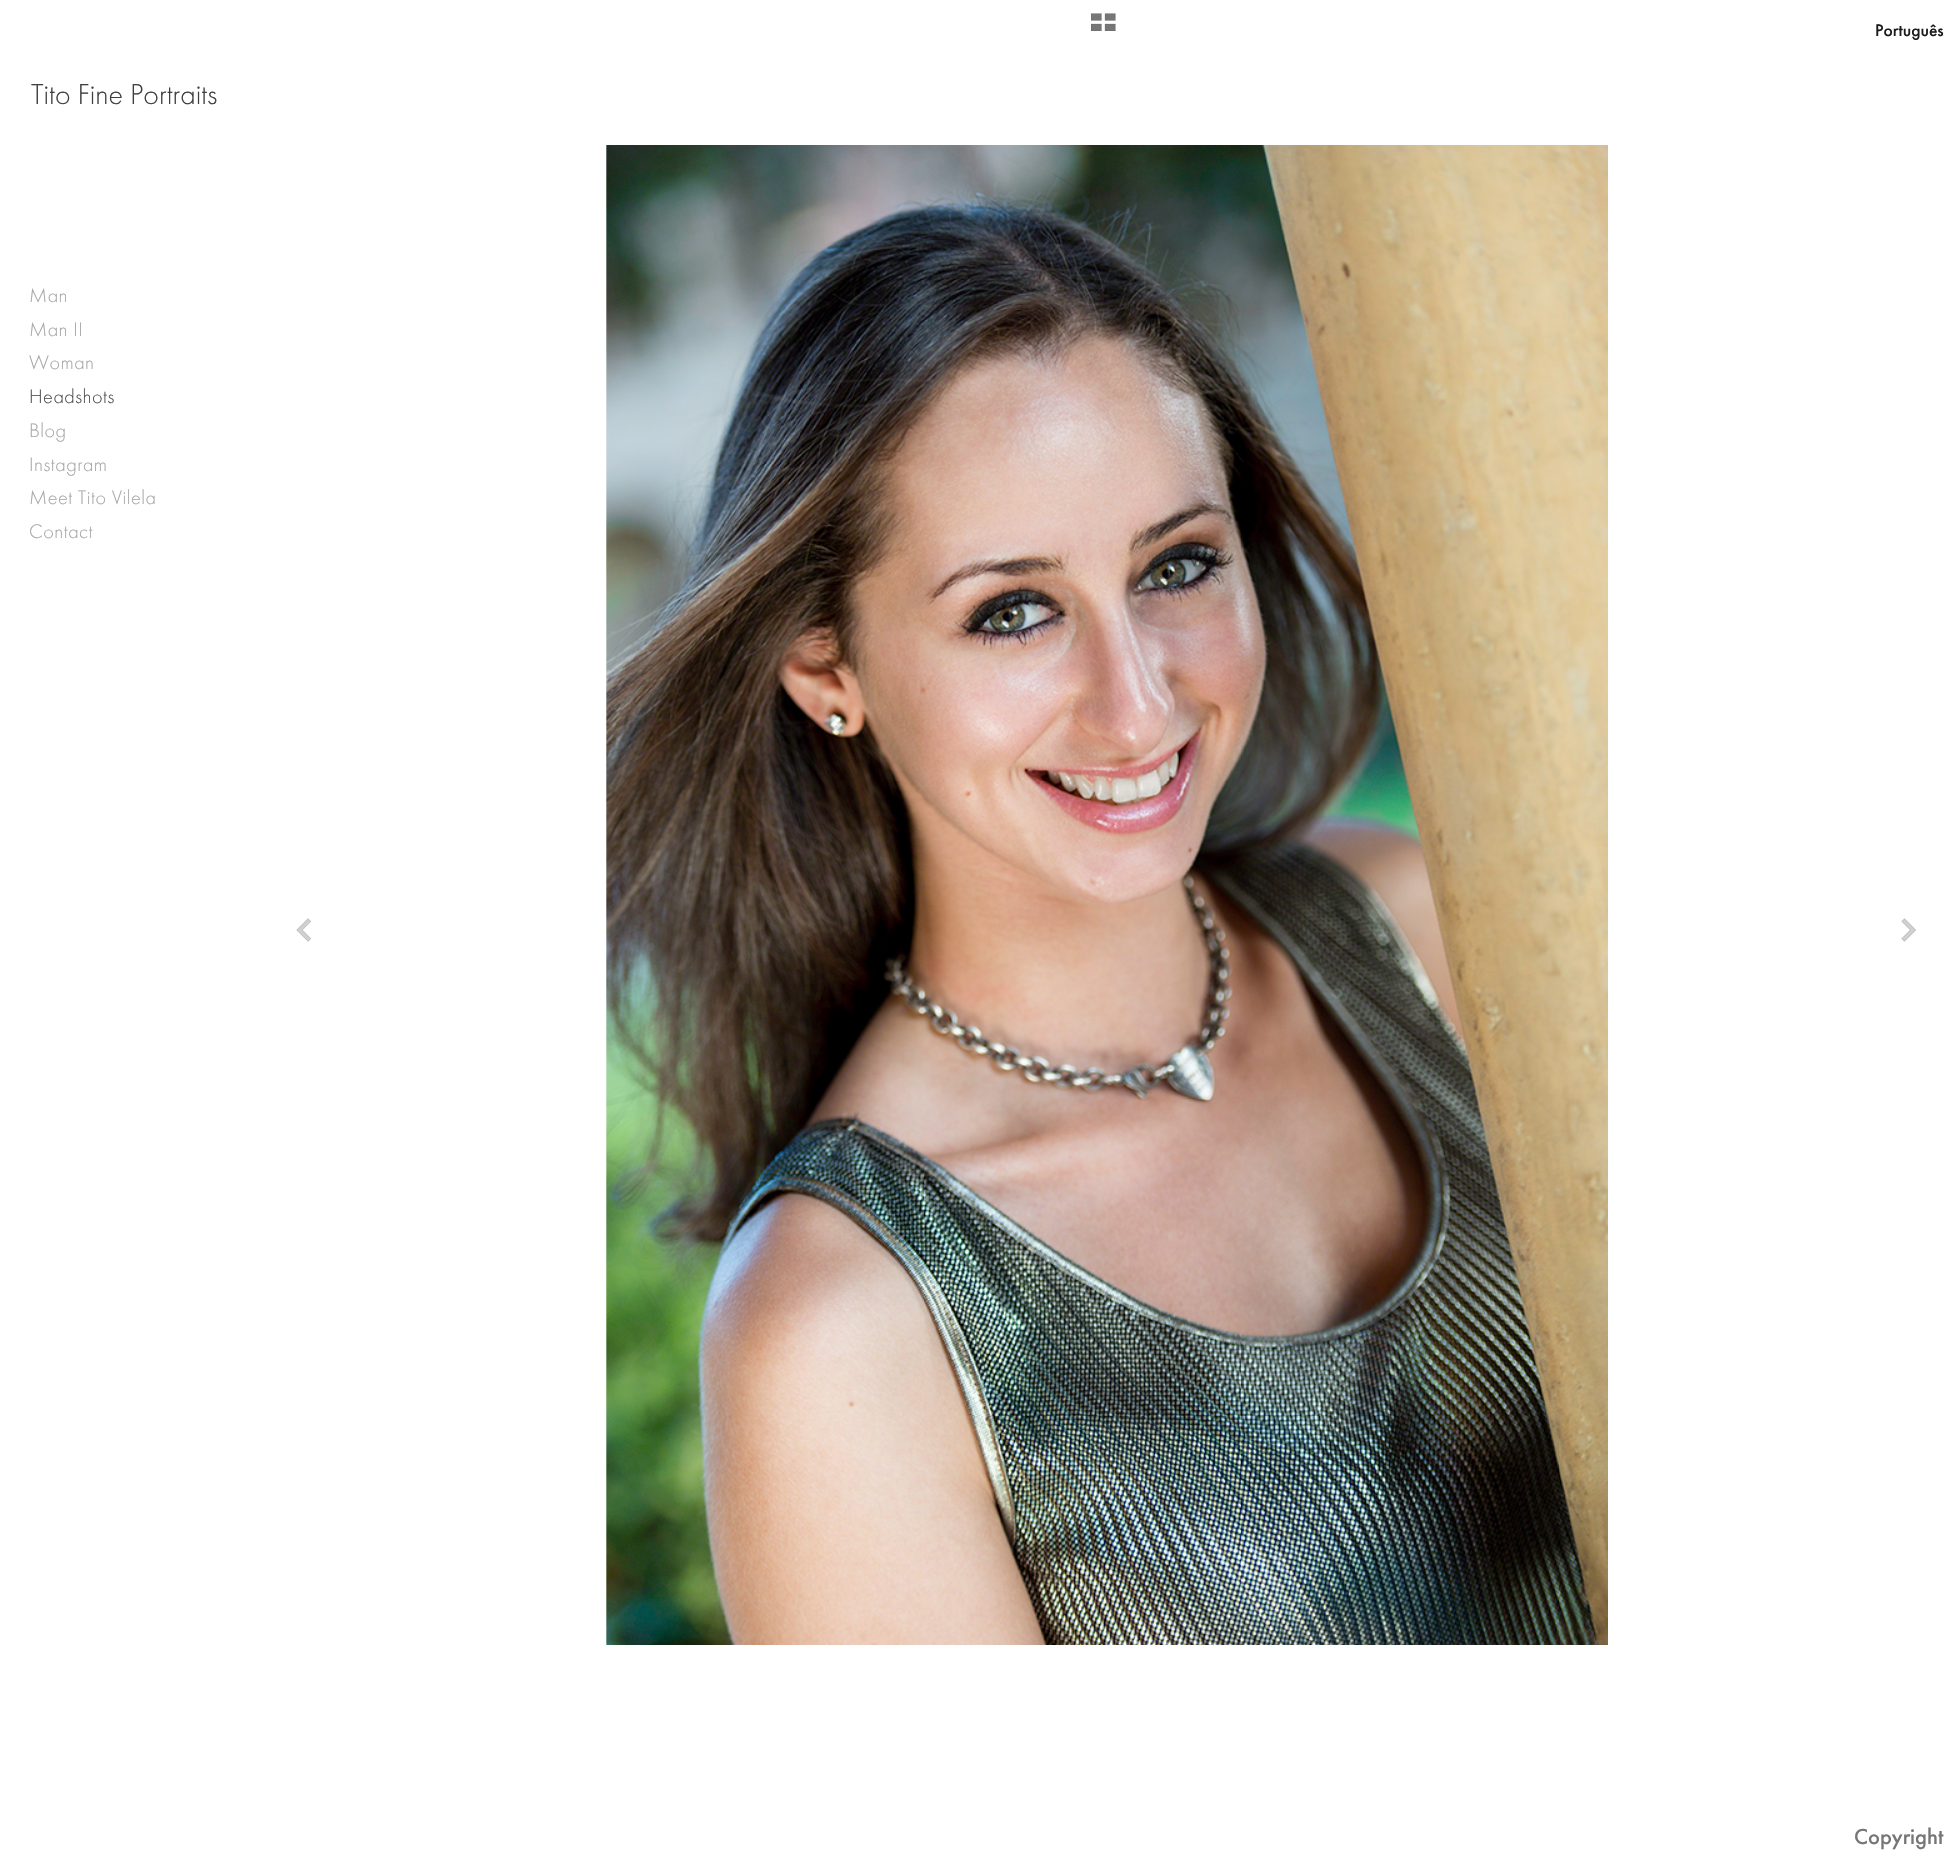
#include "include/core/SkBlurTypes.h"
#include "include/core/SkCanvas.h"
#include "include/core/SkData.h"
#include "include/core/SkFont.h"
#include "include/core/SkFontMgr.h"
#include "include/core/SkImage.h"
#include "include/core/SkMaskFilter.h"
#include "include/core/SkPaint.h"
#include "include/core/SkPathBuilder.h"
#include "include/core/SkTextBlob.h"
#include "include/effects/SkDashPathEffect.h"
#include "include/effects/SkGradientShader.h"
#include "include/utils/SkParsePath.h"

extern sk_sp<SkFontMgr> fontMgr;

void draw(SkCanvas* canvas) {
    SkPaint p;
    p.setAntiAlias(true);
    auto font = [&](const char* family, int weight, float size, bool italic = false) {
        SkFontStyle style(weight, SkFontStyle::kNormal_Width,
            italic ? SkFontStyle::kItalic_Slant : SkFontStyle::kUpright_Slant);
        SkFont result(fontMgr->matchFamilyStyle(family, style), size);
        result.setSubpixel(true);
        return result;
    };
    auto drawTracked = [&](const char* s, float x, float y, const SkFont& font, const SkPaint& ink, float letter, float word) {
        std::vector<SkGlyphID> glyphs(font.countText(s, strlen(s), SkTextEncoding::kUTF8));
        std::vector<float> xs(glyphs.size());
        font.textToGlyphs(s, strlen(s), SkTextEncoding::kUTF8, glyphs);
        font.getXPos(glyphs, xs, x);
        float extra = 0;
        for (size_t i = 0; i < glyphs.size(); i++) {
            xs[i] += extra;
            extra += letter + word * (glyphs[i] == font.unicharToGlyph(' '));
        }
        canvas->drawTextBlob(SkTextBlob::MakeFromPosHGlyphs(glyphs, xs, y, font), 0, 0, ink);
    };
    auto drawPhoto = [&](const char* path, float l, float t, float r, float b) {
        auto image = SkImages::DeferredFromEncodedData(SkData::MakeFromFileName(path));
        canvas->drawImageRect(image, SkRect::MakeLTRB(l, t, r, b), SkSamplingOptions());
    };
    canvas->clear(0xFFFFFFFF);
    drawPhoto("media/1.png", 1091, 13, 1116, 31);
    auto font1 = font("Futura PT", 500, 17.5f);
    p.setColor(0xFF1B1B1B);
    canvas->drawString("Português", 1875, 36, font1, p);
    auto font2 = font("Futura PT", 300, 30);
    p.setColor(0xFF3F3F3F);
    canvas->drawString("Tito Fine Portraits", 31, 104, font2, p);
    auto font3 = font("Futura PT", 300, 20.25f);
    p.setColor(0xFFA6A6A6);
    {
        const struct { const char* s; float x, y; } items[] = {
            {"Man", 29, 302},
            {"Man II", 29, 336},
            {"Woman", 29, 369},
        };
        for (auto [s, x, y] : items) {
            drawTracked(s, x, y, font3, p, 0.5f, 0);
        }
    }
    p.setColor(0xFF4C4C4C);
    drawTracked("Headshots", 29, 403, font3, p, 0.5f, 0);
    p.setColor(0xFFA6A6A6);
    {
        const struct { const char* s; float x, y; } items[] = {
            {"Blog", 29, 437},
            {"Instagram", 29, 471},
            {"Meet Tito Vilela", 29, 504},
            {"Contact", 29, 538},
        };
        for (auto [s, x, y] : items) {
            drawTracked(s, x, y, font3, p, 0.5f, 0);
        }
    }
    drawPhoto("media/2.png", 296, 918, 312, 942);
    drawPhoto("media/3.png", 606, 145, 1608, 1645);
    drawPhoto("media/4.png", 1901, 918, 1916, 942);
    auto font4 = font("Futura PT", 500, 22.5f);
    p.setColor(0xFF767676);
    canvas->drawString("Copyright", 1854, 1844, font4, p);
}
